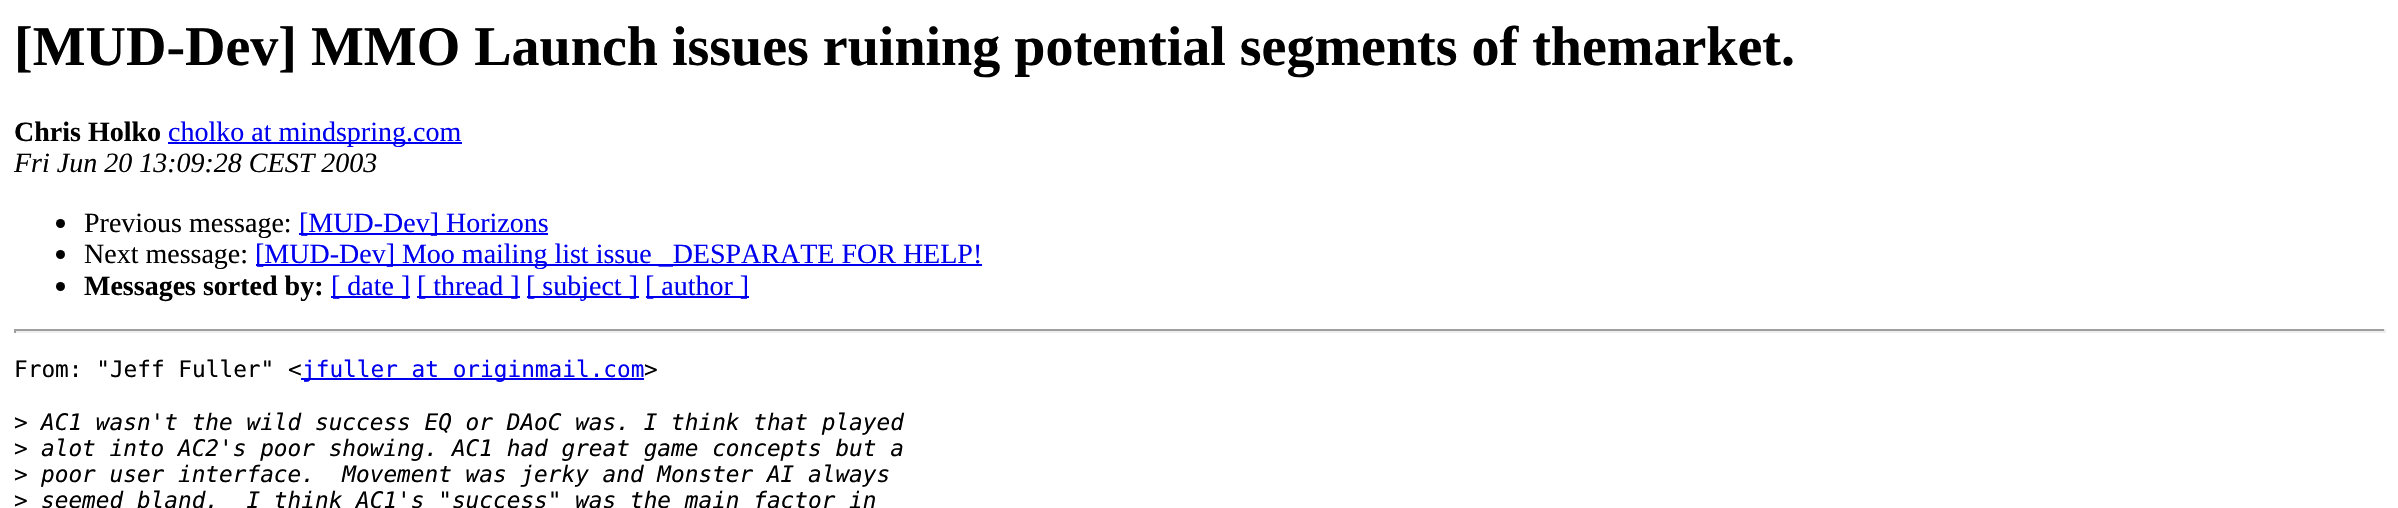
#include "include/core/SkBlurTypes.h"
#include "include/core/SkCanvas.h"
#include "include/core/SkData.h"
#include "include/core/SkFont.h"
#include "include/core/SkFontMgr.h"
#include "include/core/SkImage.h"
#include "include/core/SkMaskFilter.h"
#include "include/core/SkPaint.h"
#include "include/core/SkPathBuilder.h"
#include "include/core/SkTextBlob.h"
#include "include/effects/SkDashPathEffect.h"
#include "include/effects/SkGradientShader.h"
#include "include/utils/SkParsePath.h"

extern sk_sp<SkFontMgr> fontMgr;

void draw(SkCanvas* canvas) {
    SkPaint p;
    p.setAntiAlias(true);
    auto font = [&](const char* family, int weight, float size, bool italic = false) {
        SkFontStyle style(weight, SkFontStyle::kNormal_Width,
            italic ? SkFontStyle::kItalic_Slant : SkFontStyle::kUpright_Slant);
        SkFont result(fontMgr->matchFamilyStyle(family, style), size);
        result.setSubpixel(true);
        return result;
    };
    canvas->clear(0xFFFFFFFF);
    auto font1 = font("Liberation Serif", 700, 56);
    p.setColor(0xFF000000);
    canvas->drawString("[MUD-Dev] MMO Launch issues ruining potential segments of themarket.", 14, 65, font1, p);
    auto font2 = font("Liberation Serif", 700, 28);
    canvas->drawString("Chris Holko", 14, 141, font2, p);
    p.setColor(0xFF0000EE);
    canvas->drawRect(SkRect::MakeLTRB(168, 142, 462, 144), p);
    auto font3 = font("Liberation Serif", 400, 28);
    canvas->drawString("cholko at mindspring.com", 168, 141, font3, p);
    auto font4 = font("Liberation Serif", 400, 28, true);
    p.setColor(0xFF000000);
    canvas->drawString("Fri Jun 20 13:09:28 CEST 2003", 14, 172, font4, p);
    canvas->drawCircle(60.5f, 223.5f, 4.5f, p);
    canvas->drawString("Previous message:", 84, 232, font3, p);
    p.setColor(0xFF0000EE);
    canvas->drawRect(SkRect::MakeLTRB(299, 233, 548, 235), p);
    canvas->drawString("[MUD-Dev] Horizons", 299, 232, font3, p);
    p.setColor(0xFF000000);
    canvas->drawCircle(60.5f, 254.5f, 4.5f, p);
    canvas->drawString("Next message:", 84, 263, font3, p);
    p.setColor(0xFF0000EE);
    canvas->drawRect(SkRect::MakeLTRB(256, 264, 982, 266), p);
    canvas->drawString("[MUD-Dev] Moo mailing list issue _DESPARATE FOR HELP!", 255, 263, font3, p);
    p.setColor(0xFF000000);
    canvas->drawCircle(60.5f, 286.5f, 4.5f, p);
    canvas->drawString("Messages sorted by:", 84, 295, font2, p);
    p.setColor(0xFF0000EE);
    canvas->drawRect(SkRect::MakeLTRB(331, 296, 410, 298), p);
    canvas->drawString("[ date ]", 331, 295, font3, p);
    canvas->drawRect(SkRect::MakeLTRB(417, 296, 520, 298), p);
    canvas->drawString("[ thread ]", 417, 295, font3, p);
    canvas->drawRect(SkRect::MakeLTRB(527, 296, 639, 298), p);
    canvas->drawString("[ subject ]", 526, 295, font3, p);
    canvas->drawRect(SkRect::MakeLTRB(646, 296, 749, 298), p);
    canvas->drawString("[ author ]", 645, 295, font3, p);
    {
        const struct { float l, t, r, b; SkColor color; } items[] = {
            {14, 329, 2385, 331, 0xFF9F9F9F},
            {2384, 329, 2386, 333, 0xFFEEEEEE},
            {14, 331, 2385, 333, 0xFFEEEEEE},
            {14, 329, 16, 333, 0xFF9F9F9F},
        };
        for (auto [l, t, r, b, color] : items) {
            p.setColor(color);
            canvas->drawRect(SkRect::MakeLTRB(l, t, r, b), p);
        }
    }
    auto font5 = font("DejaVu Sans Mono", 400, 22.75f);
    p.setColor(0xFF000000);
    canvas->drawString("From: \"Jeff Fuller\" <", 14, 377, font5, p);
    p.setColor(0xFF0000EE);
    canvas->drawRect(SkRect::MakeLTRB(301, 378, 644, 380), p);
    canvas->drawString("jfuller at originmail.com", 302, 377, font5, p);
    p.setColor(0xFF000000);
    canvas->drawString(">", 644, 377, font5, p);
    canvas->drawString(">", 14, 430, font5, p);
    auto font6 = font("DejaVu Sans Mono", 400, 22.75f, true);
    canvas->drawString("AC1 wasn't the wild success EQ or DAoC was. I think that played", 41, 430, font6, p);
    canvas->drawString(">", 14, 456, font5, p);
    canvas->drawString("alot into AC2's poor showing. AC1 had great game concepts but a", 41, 456, font6, p);
    canvas->drawString(">", 14, 482, font5, p);
    canvas->drawString("poor user interface.  Movement was jerky and Monster AI always", 41, 482, font6, p);
    canvas->drawString(">", 14, 508, font5, p);
    canvas->drawString("seemed bland.  I think AC1's \"success\" was the main factor in", 41, 508, font6, p);
}
